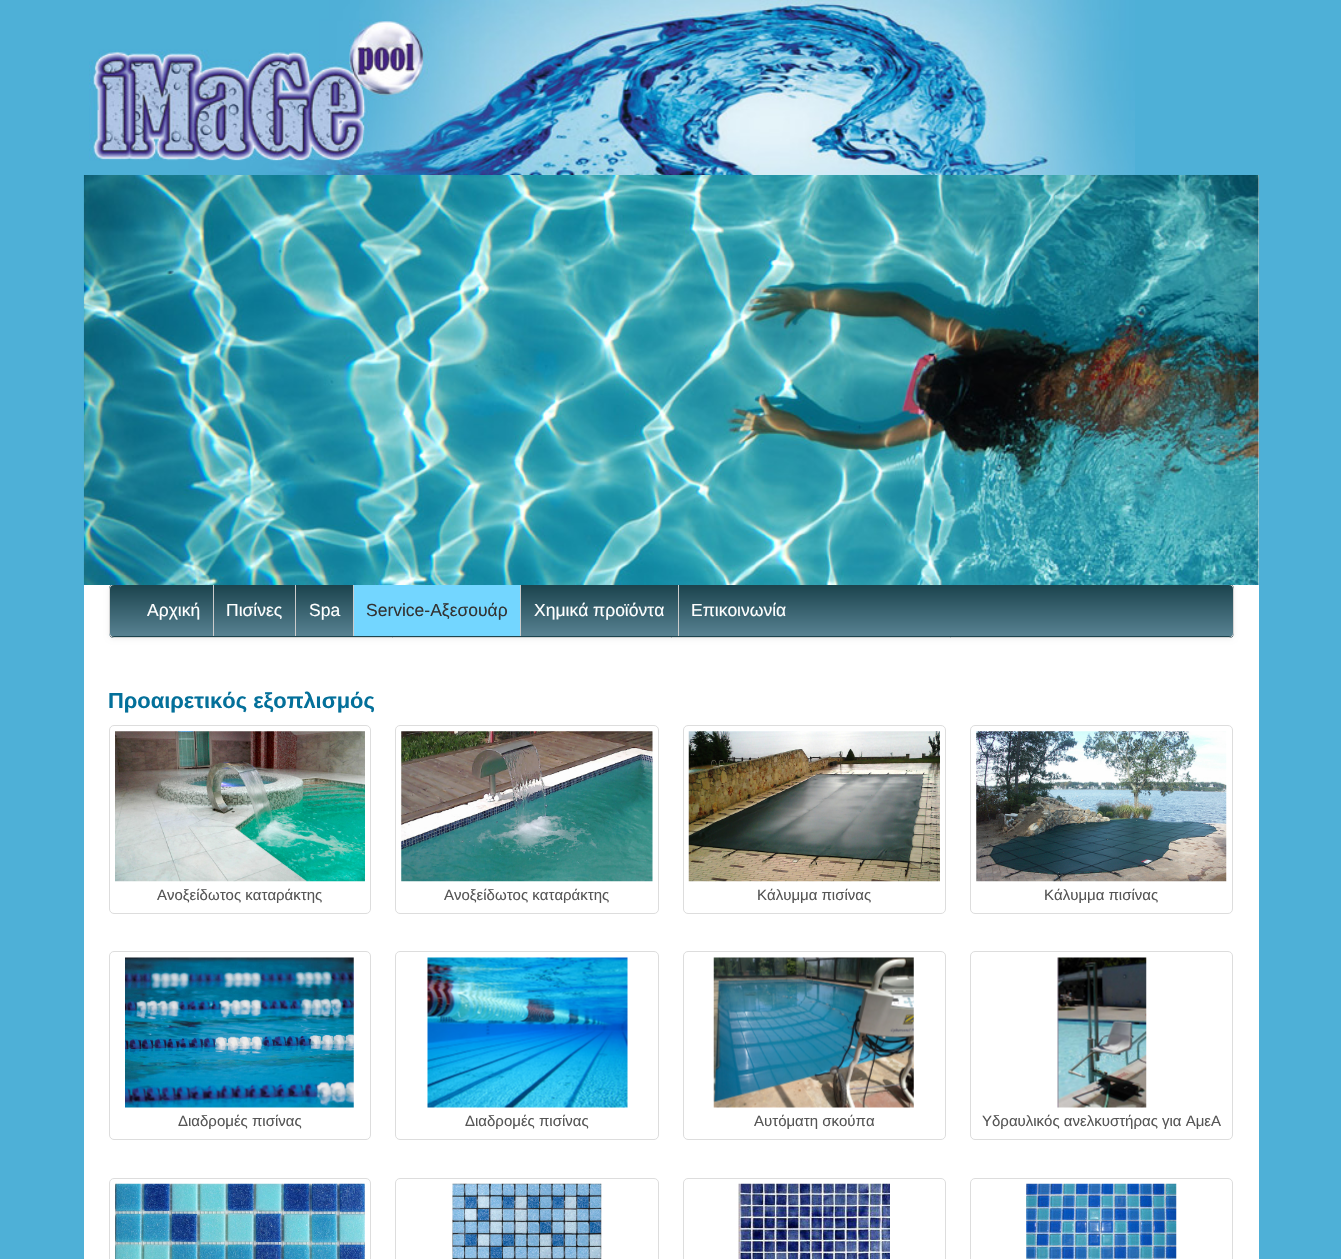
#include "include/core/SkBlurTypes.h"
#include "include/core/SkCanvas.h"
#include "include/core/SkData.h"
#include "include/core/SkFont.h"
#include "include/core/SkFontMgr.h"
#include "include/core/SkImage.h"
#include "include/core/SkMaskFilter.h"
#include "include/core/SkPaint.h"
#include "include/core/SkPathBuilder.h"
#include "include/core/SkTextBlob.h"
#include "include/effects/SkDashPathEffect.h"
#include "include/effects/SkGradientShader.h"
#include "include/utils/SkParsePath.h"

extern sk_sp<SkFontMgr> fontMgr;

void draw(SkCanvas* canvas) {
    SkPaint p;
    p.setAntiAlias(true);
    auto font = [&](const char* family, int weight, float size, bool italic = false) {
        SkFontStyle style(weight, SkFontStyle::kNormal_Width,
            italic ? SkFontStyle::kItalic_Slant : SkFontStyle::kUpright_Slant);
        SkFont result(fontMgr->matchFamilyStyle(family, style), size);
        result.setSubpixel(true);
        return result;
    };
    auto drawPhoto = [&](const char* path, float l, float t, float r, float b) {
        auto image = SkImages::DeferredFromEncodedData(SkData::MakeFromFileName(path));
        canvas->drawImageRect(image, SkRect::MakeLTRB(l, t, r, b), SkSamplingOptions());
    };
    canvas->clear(0xFF4EB0D7);
    p.setColor(0xFFFFFFFF);
    canvas->drawRect(SkRect::MakeLTRB(84, 175, 1259, 1259), p);
    drawPhoto("media/1.png", 89, 0, 1135, 175);
    p.setColor(0x12000000);
    p.setMaskFilter(SkMaskFilter::MakeBlur(kNormal_SkBlurStyle, 2.5f));
    canvas->drawRoundRect(SkRect::MakeLTRB(109, 585, 1234, 639), 5, 5, p);
    p.setMaskFilter(nullptr);
    canvas->save();
    canvas->clipPath(SkPathBuilder().moveTo(114, 584).lineTo(1229, 584).cubicTo(1232, 584, 1234, 586, 1234, 589).lineTo(1234, 633).cubicTo(1234, 636, 1232, 638, 1229, 638).lineTo(114, 638).cubicTo(111, 638, 109, 636, 109, 633).lineTo(109, 589).cubicTo(109, 586, 111, 584, 114, 584).close().detach(), true);
    {
        const SkColor colors[] = {0xFF1B434D, 0xFF588292};
        const float stops[] = {0, 1};
        const SkPoint ends[] = {{671, 585}, {671, 636}};
        p.setShader(SkGradientShader::MakeLinear(ends, colors, stops, 2, SkTileMode::kClamp));
        p.setAlpha(255);
    }
    canvas->drawRect(SkRect::MakeLTRB(109, 585, 1234, 636), p);
    {
        const SkColor colors[] = {0xFF1B434D, 0xFF588292};
        const float stops[] = {0, 1};
        const SkPoint ends[] = {{671, 636}, {671, 688}};
        p.setShader(SkGradientShader::MakeLinear(ends, colors, stops, 2, SkTileMode::kClamp));
        p.setAlpha(255);
    }
    canvas->drawRect(SkRect::MakeLTRB(109, 636, 1234, 638), p);
    canvas->restore();
    p.setStyle(SkPaint::kStroke_Style);
    p.setStrokeWidth(1);
    p.setShader(nullptr);
    p.setColor(0xFFD4D4D4);
    canvas->drawRoundRect(SkRect::MakeLTRB(109.5f, 584.5f, 1233.5f, 637.5f), 4.5f, 4.5f, p);
    drawPhoto("media/2.png", 83, 175, 1259, 585);
    auto font1 = font("Liberation Sans", 400, 17.5f);
    p.setStyle(SkPaint::kFill_Style);
    p.setColor(0xFFFFFFFF);
    canvas->drawString("Αρχική", 147, 616, font1, p);
    p.setColor(0xFFCBCBCB);
    canvas->drawRect(SkRect::MakeLTRB(213, 585, 214, 636), p);
    p.setColor(0xFFFFFFFF);
    canvas->drawString("Πισίνες", 226, 616, font1, p);
    p.setColor(0xFFCBCBCB);
    canvas->drawRect(SkRect::MakeLTRB(295, 585, 296, 636), p);
    p.setColor(0xFFFFFFFF);
    canvas->drawString("Spa", 309, 616, font1, p);
    p.setColor(0xFFCBCBCB);
    canvas->drawRect(SkRect::MakeLTRB(353, 585, 354, 636), p);
    p.setColor(0xFF73D6FF);
    canvas->drawRect(SkRect::MakeLTRB(354, 585, 520, 636), p);
    p.setColor(0xFF333333);
    canvas->drawString("Service-Αξεσουάρ", 366, 616, font1, p);
    p.setColor(0xFFCBCBCB);
    canvas->drawRect(SkRect::MakeLTRB(520, 585, 521, 636), p);
    p.setColor(0xFFFFFFFF);
    canvas->drawString("Χημικά προϊόντα", 534, 616, font1, p);
    p.setColor(0xFFCBCBCB);
    canvas->drawRect(SkRect::MakeLTRB(678, 585, 679, 636), p);
    p.setColor(0xFFFFFFFF);
    canvas->drawString("Επικοινωνία", 691, 616, font1, p);
    auto font2 = font("Liberation Sans", 700, 21.9f);
    p.setColor(0xFF03709A);
    canvas->drawString("Προαιρετικός εξοπλισμός", 108, 708, font2, p);
    p.setStyle(SkPaint::kStroke_Style);
    p.setColor(0xFFDDDDDD);
    canvas->drawRoundRect(SkRect::MakeLTRB(109.5f, 725.5f, 370.5f, 913.5f), 4.5f, 4.5f, p);
    drawPhoto("media/3.png", 115, 731, 365, 882);
    auto font3 = font("Liberation Sans", 400, 15);
    p.setStyle(SkPaint::kFill_Style);
    p.setColor(0xFF555555);
    canvas->drawString("Ανοξείδωτος καταράκτης", 157, 900, font3, p);
    p.setStyle(SkPaint::kStroke_Style);
    p.setColor(0xFFDDDDDD);
    canvas->drawRoundRect(SkRect::MakeLTRB(395.5f, 725.5f, 658.5f, 913.5f), 4.5f, 4.5f, p);
    drawPhoto("media/4.png", 401, 731, 653, 882);
    p.setStyle(SkPaint::kFill_Style);
    p.setColor(0xFF555555);
    canvas->drawString("Ανοξείδωτος καταράκτης", 444, 900, font3, p);
    p.setStyle(SkPaint::kStroke_Style);
    p.setColor(0xFFDDDDDD);
    canvas->drawRoundRect(SkRect::MakeLTRB(683.5f, 725.5f, 945.5f, 913.5f), 4.5f, 4.5f, p);
    drawPhoto("media/5.png", 688, 731, 940, 882);
    p.setStyle(SkPaint::kFill_Style);
    p.setColor(0xFF555555);
    canvas->drawString("Κάλυμμα πισίνας", 757, 900, font3, p);
    p.setStyle(SkPaint::kStroke_Style);
    p.setColor(0xFFDDDDDD);
    canvas->drawRoundRect(SkRect::MakeLTRB(970.5f, 725.5f, 1232.5f, 913.5f), 4.5f, 4.5f, p);
    drawPhoto("media/6.png", 976, 731, 1227, 882);
    p.setStyle(SkPaint::kFill_Style);
    p.setColor(0xFF555555);
    canvas->drawString("Κάλυμμα πισίνας", 1044, 900, font3, p);
    p.setStyle(SkPaint::kStroke_Style);
    p.setColor(0xFFDDDDDD);
    canvas->drawRoundRect(SkRect::MakeLTRB(109.5f, 951.5f, 370.5f, 1139.5f), 4.5f, 4.5f, p);
    drawPhoto("media/7.png", 125, 957, 354, 1108);
    p.setStyle(SkPaint::kFill_Style);
    p.setColor(0xFF555555);
    canvas->drawString("Διαδρομές πισίνας", 178, 1126, font3, p);
    p.setStyle(SkPaint::kStroke_Style);
    p.setColor(0xFFDDDDDD);
    canvas->drawRoundRect(SkRect::MakeLTRB(395.5f, 951.5f, 658.5f, 1139.5f), 4.5f, 4.5f, p);
    drawPhoto("media/8.png", 427, 957, 628, 1108);
    p.setStyle(SkPaint::kFill_Style);
    p.setColor(0xFF555555);
    canvas->drawString("Διαδρομές πισίνας", 465, 1126, font3, p);
    p.setStyle(SkPaint::kStroke_Style);
    p.setColor(0xFFDDDDDD);
    canvas->drawRoundRect(SkRect::MakeLTRB(683.5f, 951.5f, 945.5f, 1139.5f), 4.5f, 4.5f, p);
    drawPhoto("media/9.png", 713, 957, 914, 1108);
    p.setStyle(SkPaint::kFill_Style);
    p.setColor(0xFF555555);
    canvas->drawString("Αυτόματη σκούπα", 754, 1126, font3, p);
    p.setStyle(SkPaint::kStroke_Style);
    p.setColor(0xFFDDDDDD);
    canvas->drawRoundRect(SkRect::MakeLTRB(970.5f, 951.5f, 1232.5f, 1139.5f), 4.5f, 4.5f, p);
    drawPhoto("media/10.png", 1057, 957, 1147, 1108);
    p.setStyle(SkPaint::kFill_Style);
    p.setColor(0xFF555555);
    canvas->drawString("Υδραυλικός ανελκυστήρας για ΑμεΑ", 982, 1126, font3, p);
    p.setStyle(SkPaint::kStroke_Style);
    p.setColor(0xFFDDDDDD);
    canvas->drawRoundRect(SkRect::MakeLTRB(109.5f, 1178.5f, 370.5f, 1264.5f), 4.5f, 4.5f, p);
    drawPhoto("media/11.png", 115, 1183, 365, 1259);
    canvas->drawRoundRect(SkRect::MakeLTRB(395.5f, 1178.5f, 658.5f, 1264.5f), 4.5f, 4.5f, p);
    drawPhoto("media/12.png", 452, 1183, 602, 1259);
    canvas->drawRoundRect(SkRect::MakeLTRB(683.5f, 1178.5f, 945.5f, 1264.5f), 4.5f, 4.5f, p);
    drawPhoto("media/13.png", 738, 1183, 890, 1259);
    canvas->drawRoundRect(SkRect::MakeLTRB(970.5f, 1178.5f, 1232.5f, 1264.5f), 4.5f, 4.5f, p);
    drawPhoto("media/14.png", 1026, 1183, 1177, 1259);
}
